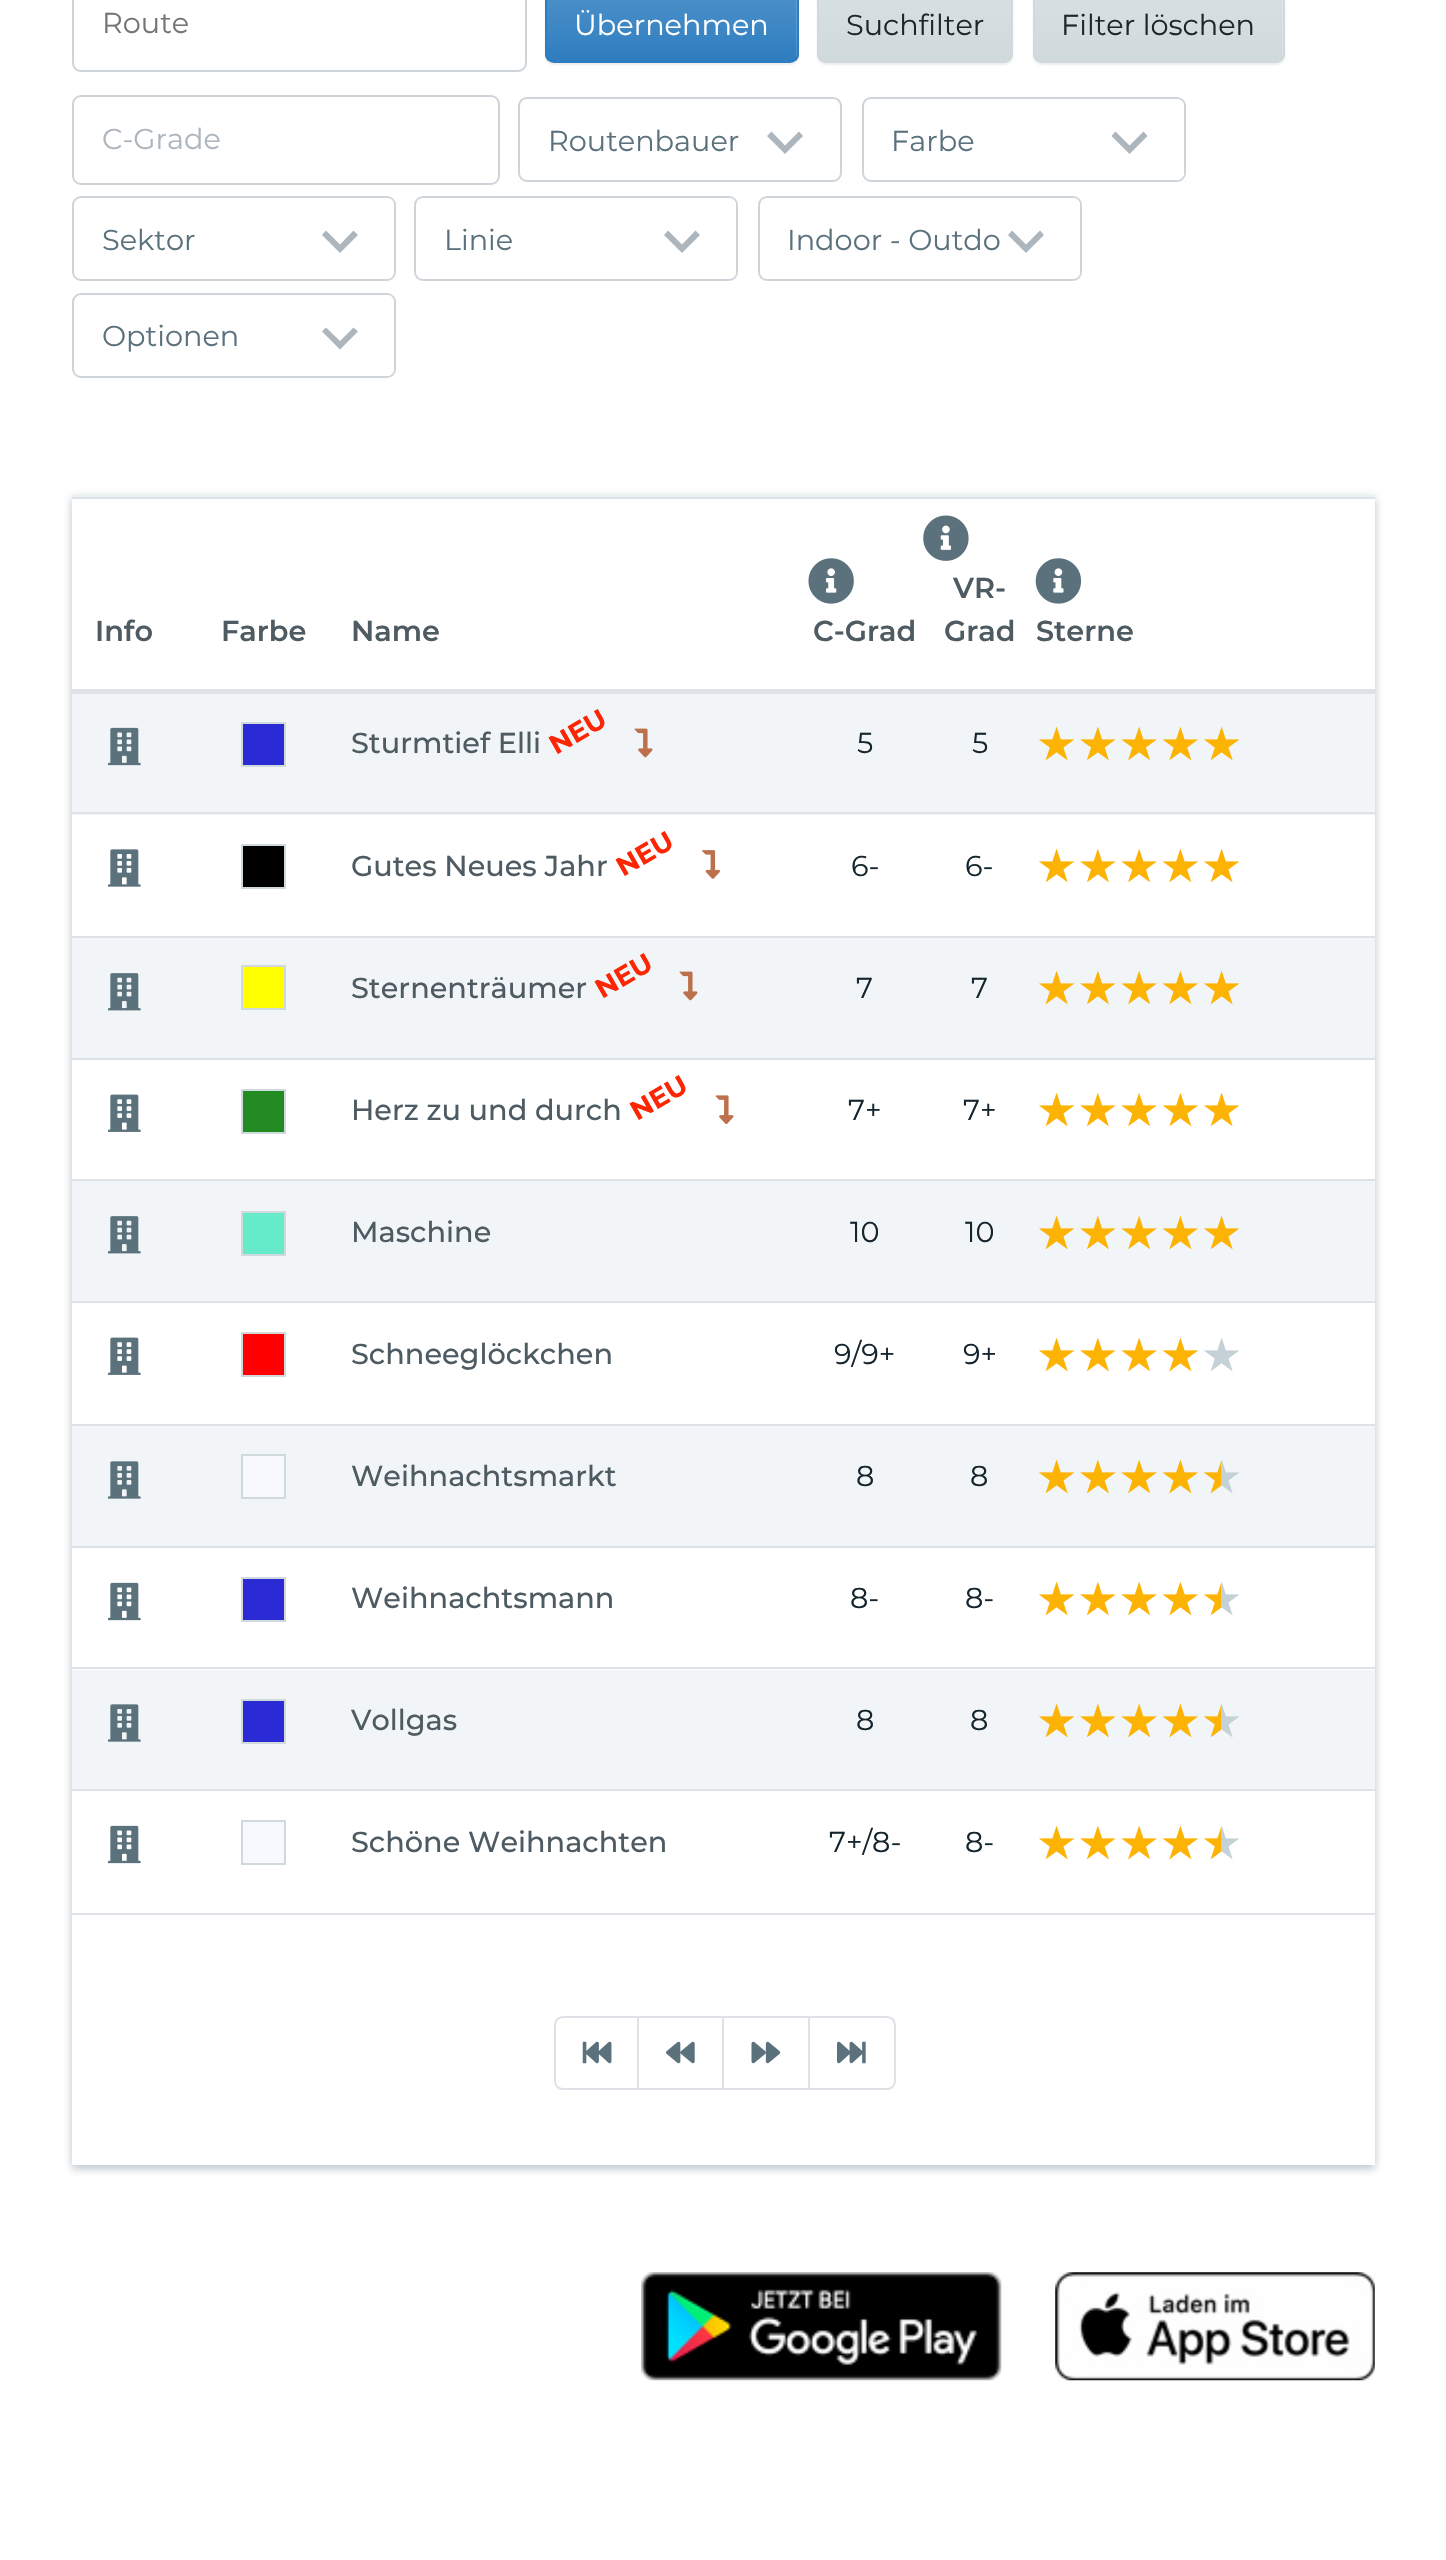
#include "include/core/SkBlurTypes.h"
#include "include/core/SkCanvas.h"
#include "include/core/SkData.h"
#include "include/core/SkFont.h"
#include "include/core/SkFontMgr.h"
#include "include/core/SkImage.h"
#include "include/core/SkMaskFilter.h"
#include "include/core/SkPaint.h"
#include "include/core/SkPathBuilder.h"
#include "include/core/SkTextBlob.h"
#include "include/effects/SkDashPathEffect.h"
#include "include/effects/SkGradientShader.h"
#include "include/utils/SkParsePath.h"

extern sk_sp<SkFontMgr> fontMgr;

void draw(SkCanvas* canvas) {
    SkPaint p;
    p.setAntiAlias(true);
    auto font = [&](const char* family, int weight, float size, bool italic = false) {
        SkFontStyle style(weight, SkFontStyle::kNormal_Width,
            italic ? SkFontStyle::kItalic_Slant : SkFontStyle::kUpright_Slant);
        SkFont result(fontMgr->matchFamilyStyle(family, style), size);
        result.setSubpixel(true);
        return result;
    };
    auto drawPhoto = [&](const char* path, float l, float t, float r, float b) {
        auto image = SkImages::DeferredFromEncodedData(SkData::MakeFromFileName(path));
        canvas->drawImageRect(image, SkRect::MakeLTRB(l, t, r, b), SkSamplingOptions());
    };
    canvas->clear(0xFFFFFFFF);
    p.setStyle(SkPaint::kStroke_Style);
    p.setStrokeWidth(2);
    p.setColor(0xFFCED4DA);
    canvas->drawRoundRect(SkRect::MakeLTRB(73, -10, 526, 71), 8, 8, p);
    auto font1 = font("Montserrat", 400, 28.75f);
    p.setStyle(SkPaint::kFill_Style);
    p.setColor(0xFF757575);
    canvas->drawString("Route", 102, 33, font1, p);
    p.setColor(0x12000000);
    p.setMaskFilter(SkMaskFilter::MakeBlur(kNormal_SkBlurStyle, 1));
    canvas->drawRoundRect(SkRect::MakeLTRB(545, -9, 799, 65), 9, 9, p);
    p.setMaskFilter(nullptr);
    canvas->save();
    canvas->clipPath(SkPathBuilder().moveTo(554, -11).lineTo(790, -11).cubicTo(795, -11, 799, -7, 799, -2).lineTo(799, 54).cubicTo(799, 59, 795, 63, 790, 63).lineTo(554, 63).cubicTo(549, 63, 545, 59, 545, 54).lineTo(545, -2).cubicTo(545, -7, 549, -11, 554, -11).close().detach(), true);
    {
        const SkColor colors[] = {0xFF4D91C9, 0xFF2E7DC0};
        const float stops[] = {0, 1};
        const SkPoint ends[] = {{672, -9}, {672, 61}};
        p.setShader(SkGradientShader::MakeLinear(ends, colors, stops, 2, SkTileMode::kClamp));
        p.setAlpha(255);
    }
    canvas->drawRect(SkRect::MakeLTRB(545, 0, 799, 61), p);
    canvas->restore();
    p.setShader(nullptr);
    p.setColor(0x26FFFFFF);
    canvas->drawPath(SkPathBuilder().moveTo(554, -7).lineTo(790, -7).cubicTo(793, -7, 796, -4, 796, 0).lineTo(796, 58).cubicTo(797, 57, 797, 55, 797, 54).lineTo(797, -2).cubicTo(797, -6, 794, -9, 790, -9).lineTo(554, -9).cubicTo(550, -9, 547, -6, 547, -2).lineTo(547, 0).cubicTo(547, -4, 550, -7, 554, -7).close().detach(), p);
    p.setStyle(SkPaint::kStroke_Style);
    p.setColor(0xFF2E7DC0);
    canvas->drawRoundRect(SkRect::MakeLTRB(546, -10, 798, 62), 8, 8, p);
    p.setStyle(SkPaint::kFill_Style);
    p.setColor(0xFFFFFFFF);
    canvas->drawString("Übernehmen", 574, 35, font1, p);
    p.setColor(0x12000000);
    p.setMaskFilter(SkMaskFilter::MakeBlur(kNormal_SkBlurStyle, 1));
    canvas->drawRoundRect(SkRect::MakeLTRB(817, -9, 1013, 65), 9, 9, p);
    p.setMaskFilter(nullptr);
    canvas->save();
    canvas->clipPath(SkPathBuilder().moveTo(826, -11).lineTo(1004, -11).cubicTo(1009, -11, 1013, -7, 1013, -2).lineTo(1013, 54).cubicTo(1013, 59, 1009, 63, 1004, 63).lineTo(826, 63).cubicTo(821, 63, 817, 59, 817, 54).lineTo(817, -2).cubicTo(817, -7, 821, -11, 826, -11).close().detach(), true);
    {
        const SkColor colors[] = {0xFFD7E0E2, 0xFFD0DADD};
        const float stops[] = {0, 1};
        const SkPoint ends[] = {{915, -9}, {915, 61}};
        p.setShader(SkGradientShader::MakeLinear(ends, colors, stops, 2, SkTileMode::kClamp));
        p.setAlpha(255);
    }
    canvas->drawRect(SkRect::MakeLTRB(817, 0, 1013, 61), p);
    canvas->restore();
    p.setStyle(SkPaint::kStroke_Style);
    p.setShader(nullptr);
    p.setColor(0xFFD0DADD);
    canvas->drawRoundRect(SkRect::MakeLTRB(818, -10, 1012, 62), 8, 8, p);
    p.setStyle(SkPaint::kFill_Style);
    p.setColor(0xFF212529);
    canvas->drawString("Suchfilter", 846, 35, font1, p);
    p.setColor(0x12000000);
    p.setMaskFilter(SkMaskFilter::MakeBlur(kNormal_SkBlurStyle, 1));
    canvas->drawRoundRect(SkRect::MakeLTRB(1033, -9, 1285, 65), 9, 9, p);
    p.setMaskFilter(nullptr);
    canvas->save();
    canvas->clipPath(SkPathBuilder().moveTo(1042, -11).lineTo(1276, -11).cubicTo(1281, -11, 1285, -7, 1285, -2).lineTo(1285, 54).cubicTo(1285, 59, 1281, 63, 1276, 63).lineTo(1042, 63).cubicTo(1037, 63, 1033, 59, 1033, 54).lineTo(1033, -2).cubicTo(1033, -7, 1037, -11, 1042, -11).close().detach(), true);
    {
        const SkColor colors[] = {0xFFD7E0E2, 0xFFD0DADD};
        const float stops[] = {0, 1};
        const SkPoint ends[] = {{1159, -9}, {1159, 61}};
        p.setShader(SkGradientShader::MakeLinear(ends, colors, stops, 2, SkTileMode::kClamp));
        p.setAlpha(255);
    }
    canvas->drawRect(SkRect::MakeLTRB(1033, 0, 1285, 61), p);
    canvas->restore();
    p.setShader(nullptr);
    p.setColor(0x26FFFFFF);
    canvas->drawPath(SkPathBuilder().moveTo(1042, -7).lineTo(1276, -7).cubicTo(1279, -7, 1282, -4, 1282, 0).lineTo(1282, 58).cubicTo(1283, 57, 1283, 55, 1283, 54).lineTo(1283, -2).cubicTo(1283, -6, 1280, -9, 1276, -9).lineTo(1042, -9).cubicTo(1038, -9, 1035, -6, 1035, -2).lineTo(1035, 0).cubicTo(1035, -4, 1038, -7, 1042, -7).close().detach(), p);
    p.setStyle(SkPaint::kStroke_Style);
    p.setColor(0xFFD0DADD);
    canvas->drawRoundRect(SkRect::MakeLTRB(1034, -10, 1284, 62), 8, 8, p);
    p.setStyle(SkPaint::kFill_Style);
    p.setColor(0xFF212529);
    canvas->drawString("Filter löschen", 1061, 35, font1, p);
    p.setStyle(SkPaint::kStroke_Style);
    p.setColor(0xFFCED4DA);
    canvas->drawRoundRect(SkRect::MakeLTRB(73, 96, 499, 184), 8, 8, p);
    p.setStyle(SkPaint::kFill_Style);
    p.setColor(0xFFADB5BD);
    canvas->drawString("C-Grade", 102, 149, font1, p);
    p.setStyle(SkPaint::kStroke_Style);
    p.setColor(0xFFCED4DA);
    canvas->drawRoundRect(SkRect::MakeLTRB(519, 98, 841, 181), 8, 8, p);
    p.setStyle(SkPaint::kFill_Style);
    p.setColor(0xFF5B727D);
    canvas->drawString("Routenbauer", 548, 151, font1, p);
    p.setColor(0xFFFFFFFF);
    canvas->drawPath(SkPathBuilder().moveTo(767, 99).lineTo(832, 99).cubicTo(836, 99, 839, 102, 839, 106).lineTo(839, 173).cubicTo(839, 177, 836, 180, 832, 180).lineTo(767, 180).close().detach(), p);
    p.setColor(0xFFADB5BD);
    canvas->drawPath(SkPathBuilder().moveTo(771.5f, 131.5f).lineTo(785, 145.5f).lineTo(799, 131.5f).lineTo(803, 136).lineTo(785, 154).lineTo(767, 136).close().detach(), p);
    p.setStyle(SkPaint::kStroke_Style);
    p.setColor(0xFFCED4DA);
    canvas->drawRoundRect(SkRect::MakeLTRB(863, 98, 1185, 181), 8, 8, p);
    p.setStyle(SkPaint::kFill_Style);
    p.setColor(0xFF5B727D);
    canvas->drawString("Farbe", 891, 151, font1, p);
    p.setColor(0xFFFFFFFF);
    canvas->drawPath(SkPathBuilder().moveTo(1112, 99).lineTo(1177, 99).cubicTo(1181, 99, 1184, 102, 1184, 106).lineTo(1184, 173).cubicTo(1184, 177, 1181, 180, 1177, 180).lineTo(1112, 180).close().detach(), p);
    p.setColor(0xFFADB5BD);
    canvas->drawPath(SkPathBuilder().moveTo(1115.5f, 131.5f).lineTo(1129.5f, 145.5f).lineTo(1143.5f, 131.5f).lineTo(1147.5f, 136).lineTo(1129.5f, 154).lineTo(1111.5f, 136).close().detach(), p);
    p.setStyle(SkPaint::kStroke_Style);
    p.setColor(0xFFCED4DA);
    canvas->drawRoundRect(SkRect::MakeLTRB(73, 197, 395, 280), 8, 8, p);
    p.setStyle(SkPaint::kFill_Style);
    p.setColor(0xFF5B727D);
    canvas->drawString("Sektor", 102, 250, font1, p);
    p.setColor(0xFFFFFFFF);
    canvas->drawPath(SkPathBuilder().moveTo(322, 198).lineTo(387, 198).cubicTo(391, 198, 394, 201, 394, 205).lineTo(394, 272).cubicTo(394, 276, 391, 279, 387, 279).lineTo(322, 279).close().detach(), p);
    p.setColor(0xFFADB5BD);
    canvas->drawPath(SkPathBuilder().moveTo(326, 230.5f).lineTo(340, 244.5f).lineTo(353.5f, 230.5f).lineTo(358, 235).lineTo(340, 253).lineTo(322, 235).close().detach(), p);
    p.setStyle(SkPaint::kStroke_Style);
    p.setColor(0xFFCED4DA);
    canvas->drawRoundRect(SkRect::MakeLTRB(415, 197, 737, 280), 8, 8, p);
    p.setStyle(SkPaint::kFill_Style);
    p.setColor(0xFF5B727D);
    canvas->drawString("Linie", 444, 250, font1, p);
    p.setColor(0xFFFFFFFF);
    canvas->drawPath(SkPathBuilder().moveTo(664, 198).lineTo(729, 198).cubicTo(733, 198, 736, 201, 736, 205).lineTo(736, 272).cubicTo(736, 276, 733, 279, 729, 279).lineTo(664, 279).close().detach(), p);
    p.setColor(0xFFADB5BD);
    canvas->drawPath(SkPathBuilder().moveTo(668, 230.5f).lineTo(682, 244.5f).lineTo(695.5f, 230.5f).lineTo(700, 235).lineTo(682, 253).lineTo(664, 235).close().detach(), p);
    p.setStyle(SkPaint::kStroke_Style);
    p.setColor(0xFFCED4DA);
    canvas->drawRoundRect(SkRect::MakeLTRB(759, 197, 1081, 280), 8, 8, p);
    p.setStyle(SkPaint::kFill_Style);
    p.setColor(0xFF5B727D);
    canvas->drawString("Indoor - Outdo", 787, 250, font1, p);
    p.setColor(0xFFFFFFFF);
    canvas->drawPath(SkPathBuilder().moveTo(1008, 198).lineTo(1073, 198).cubicTo(1077, 198, 1080, 201, 1080, 205).lineTo(1080, 272).cubicTo(1080, 276, 1077, 279, 1073, 279).lineTo(1008, 279).close().detach(), p);
    p.setColor(0xFFADB5BD);
    canvas->drawPath(SkPathBuilder().moveTo(1012, 230.5f).lineTo(1026, 244.5f).lineTo(1040, 230.5f).lineTo(1044, 235).lineTo(1026, 253).lineTo(1008, 235).close().detach(), p);
    p.setStyle(SkPaint::kStroke_Style);
    p.setColor(0xFFCED4DA);
    canvas->drawRoundRect(SkRect::MakeLTRB(73, 294, 395, 377), 8, 8, p);
    p.setStyle(SkPaint::kFill_Style);
    p.setColor(0xFF5B727D);
    canvas->drawString("Optionen", 102, 346, font1, p);
    p.setColor(0xFFFFFFFF);
    canvas->drawPath(SkPathBuilder().moveTo(322, 295).lineTo(387, 295).cubicTo(391, 295, 394, 298, 394, 302).lineTo(394, 369).cubicTo(394, 373, 391, 376, 387, 376).lineTo(322, 376).close().detach(), p);
    p.setColor(0xFFADB5BD);
    canvas->drawPath(SkPathBuilder().moveTo(326, 327.5f).lineTo(340, 341).lineTo(353.5f, 327.5f).lineTo(358, 331.5f).lineTo(340, 349.5f).lineTo(322, 331.5f).close().detach(), p);
    canvas->save();
    canvas->clipPath(SkPathBuilder(SkPathFillType::kEvenOdd).moveTo(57, 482).lineTo(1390, 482).lineTo(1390, 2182).lineTo(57, 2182).close().moveTo(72, 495).lineTo(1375, 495).lineTo(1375, 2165).lineTo(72, 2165).close().detach(), true);
    p.setColor(0x3B133549);
    p.setMaskFilter(SkMaskFilter::MakeBlur(kNormal_SkBlurStyle, 4.5f));
    canvas->drawRect(SkRect::MakeLTRB(72, 497, 1375, 2167), p);
    p.setMaskFilter(nullptr);
    canvas->restore();
    canvas->save();
    canvas->clipPath(SkPathBuilder(SkPathFillType::kEvenOdd).moveTo(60, 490).lineTo(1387, 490).lineTo(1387, 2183).lineTo(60, 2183).close().moveTo(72, 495).lineTo(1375, 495).lineTo(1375, 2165).lineTo(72, 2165).close().detach(), true);
    p.setColor(0x17133549);
    p.setMaskFilter(SkMaskFilter::MakeBlur(kNormal_SkBlurStyle, 3.5f));
    canvas->drawRect(SkRect::MakeLTRB(72, 502, 1375, 2171), p);
    p.setMaskFilter(nullptr);
    canvas->restore();
    p.setColor(0xFFEBF0F3);
    canvas->drawRect(SkRect::MakeLTRB(72, 495, 1375, 497), p);
    auto font2 = font("Montserrat", 600, 28.75f);
    p.setColor(0xFF4E5B62);
    {
        const struct { const char* s; float x, y; } items[] = {
            {"Info", 95, 641},
            {"Farbe", 221, 641},
            {"Name", 351, 641},
        };
        for (auto [s, x, y] : items) {
            canvas->drawString(s, x, y, font2, p);
        }
    }
    drawPhoto("media/1.png", 808, 558, 854, 604);
    canvas->drawString("C-Grad", 813, 641, font2, p);
    drawPhoto("media/2.png", 923, 515, 969, 561);
    canvas->drawString("VR-", 953, 598, font2, p);
    canvas->drawString("Grad", 944, 641, font2, p);
    p.setColor(0xFFDEE2E6);
    canvas->drawRect(SkRect::MakeLTRB(72, 497, 1375, 499), p);
    canvas->drawRect(SkRect::MakeLTRB(72, 689, 1375, 694), p);
    drawPhoto("media/3.png", 1035, 558, 1082, 604);
    p.setColor(0xFF4E5B62);
    canvas->drawString("Sterne", 1036, 641, font2, p);
    p.setColor(0xFFF1F5F7);
    canvas->drawRect(SkRect::MakeLTRB(72, 694, 1375, 815), p);
    drawPhoto("media/4.png", 108, 727, 141, 766);
    p.setColor(0xFF2B2BD6);
    canvas->drawRect(SkRect::MakeLTRB(242, 723, 285, 766), p);
    p.setStyle(SkPaint::kStroke_Style);
    p.setColor(0xFFD0DADD);
    canvas->drawRect(SkRect::MakeLTRB(242, 723, 285, 766), p);
    auto font3 = font("Montserrat", 500, 28.75f);
    p.setStyle(SkPaint::kFill_Style);
    p.setColor(0xFF4E5B62);
    canvas->drawString("Sturmtief Elli", 351, 753, font3, p);
    auto font4 = font("Montserrat", 700, 27);
    p.setColor(0xFFFD2502);
    canvas->save();
    canvas->rotate(-30, 556, 755);
    canvas->drawString("NEU", 556, 755, font4, p);
    canvas->restore();
    drawPhoto("media/5.png", 634, 728, 653, 758);
    p.setColor(0xFF15252E);
    canvas->drawString("5", 857, 753, font1, p);
    canvas->drawString("5", 972, 753, font1, p);
    auto font5 = font("DejaVu Sans", 400, 46);
    {
        const SkColor colors[] = {0xFFFDB303, 0xFFC4D2D8};
        const float stops[] = {1, 1};
        const SkPoint ends[] = {{1036, 744}, {1242, 744}};
        p.setShader(SkGradientShader::MakeLinear(ends, colors, stops, 2, SkTileMode::kClamp));
        p.setAlpha(255);
    }
    canvas->drawString("★★★★★", 1036, 760, font5, p);
    drawPhoto("media/6.png", 108, 849, 141, 887);
    p.setShader(nullptr);
    p.setColor(0xFF000000);
    canvas->drawRect(SkRect::MakeLTRB(242, 845, 285, 888), p);
    p.setStyle(SkPaint::kStroke_Style);
    p.setColor(0xFFD0DADD);
    canvas->drawRect(SkRect::MakeLTRB(242, 845, 285, 888), p);
    p.setStyle(SkPaint::kFill_Style);
    p.setColor(0xFF4E5B62);
    canvas->drawString("Gutes Neues Jahr", 351, 876, font3, p);
    p.setColor(0xFFFD2502);
    canvas->save();
    canvas->rotate(-30, 623, 877);
    canvas->drawString("NEU", 623, 877, font4, p);
    canvas->restore();
    drawPhoto("media/7.png", 702, 850, 720, 879);
    p.setColor(0xFF15252E);
    canvas->drawString("6-", 851, 876, font1, p);
    canvas->drawString("6-", 965, 876, font1, p);
    p.setColor(0xFFDEE2E6);
    canvas->drawRect(SkRect::MakeLTRB(72, 812, 1375, 814), p);
    {
        const SkColor colors[] = {0xFFFDB303, 0xFFC4D2D8};
        const float stops[] = {1, 1};
        const SkPoint ends[] = {{1036, 867}, {1242, 867}};
        p.setShader(SkGradientShader::MakeLinear(ends, colors, stops, 2, SkTileMode::kClamp));
        p.setAlpha(255);
    }
    canvas->drawString("★★★★★", 1036, 882, font5, p);
    p.setShader(nullptr);
    p.setColor(0xFFF1F5F7);
    canvas->drawRect(SkRect::MakeLTRB(72, 938, 1375, 1058), p);
    drawPhoto("media/8.png", 108, 973, 141, 1011);
    p.setColor(0xFFFFFF00);
    canvas->drawRect(SkRect::MakeLTRB(242, 966, 285, 1009), p);
    p.setStyle(SkPaint::kStroke_Style);
    p.setColor(0xFFD0DADD);
    canvas->drawRect(SkRect::MakeLTRB(242, 966, 285, 1009), p);
    p.setStyle(SkPaint::kFill_Style);
    p.setColor(0xFF4E5B62);
    canvas->drawString("Sternenträumer", 351, 998, font3, p);
    p.setColor(0xFFFD2502);
    canvas->save();
    canvas->rotate(-30, 602, 999);
    canvas->drawString("NEU", 602, 999, font4, p);
    canvas->restore();
    drawPhoto("media/5.png", 679, 971, 698, 1001);
    p.setColor(0xFF15252E);
    canvas->drawString("7", 856, 998, font1, p);
    canvas->drawString("7", 971, 998, font1, p);
    p.setColor(0xFFDEE2E6);
    canvas->drawRect(SkRect::MakeLTRB(72, 936, 1375, 938), p);
    {
        const SkColor colors[] = {0xFFFDB303, 0xFFC4D2D8};
        const float stops[] = {1, 1};
        const SkPoint ends[] = {{1036, 989}, {1242, 989}};
        p.setShader(SkGradientShader::MakeLinear(ends, colors, stops, 2, SkTileMode::kClamp));
        p.setAlpha(255);
    }
    canvas->drawString("★★★★★", 1036, 1004, font5, p);
    drawPhoto("media/9.png", 108, 1094, 141, 1132);
    p.setShader(nullptr);
    p.setColor(0xFF228B22);
    canvas->drawRect(SkRect::MakeLTRB(242, 1090, 285, 1133), p);
    p.setStyle(SkPaint::kStroke_Style);
    p.setColor(0xFFD0DADD);
    canvas->drawRect(SkRect::MakeLTRB(242, 1090, 285, 1133), p);
    p.setStyle(SkPaint::kFill_Style);
    p.setColor(0xFF4E5B62);
    canvas->drawString("Herz zu und durch", 351, 1120, font3, p);
    p.setColor(0xFFFD2502);
    canvas->save();
    canvas->rotate(-30, 637, 1121);
    canvas->drawString("NEU", 637, 1121, font4, p);
    canvas->restore();
    drawPhoto("media/10.png", 715, 1095, 734, 1125);
    p.setColor(0xFF15252E);
    canvas->drawString("7+", 848, 1120, font1, p);
    canvas->drawString("7+", 963, 1120, font1, p);
    p.setColor(0xFFDEE2E6);
    canvas->drawRect(SkRect::MakeLTRB(72, 1058, 1375, 1060), p);
    {
        const SkColor colors[] = {0xFFFDB303, 0xFFC4D2D8};
        const float stops[] = {1, 1};
        const SkPoint ends[] = {{1036, 1111}, {1242, 1111}};
        p.setShader(SkGradientShader::MakeLinear(ends, colors, stops, 2, SkTileMode::kClamp));
        p.setAlpha(255);
    }
    canvas->drawString("★★★★★", 1036, 1126, font5, p);
    p.setShader(nullptr);
    p.setColor(0xFFF1F5F7);
    canvas->drawRect(SkRect::MakeLTRB(72, 1181, 1375, 1301), p);
    drawPhoto("media/8.png", 108, 1216, 141, 1254);
    p.setColor(0xFF65EBCA);
    canvas->drawRect(SkRect::MakeLTRB(242, 1212, 285, 1255), p);
    p.setStyle(SkPaint::kStroke_Style);
    p.setColor(0xFFD0DADD);
    canvas->drawRect(SkRect::MakeLTRB(242, 1212, 285, 1255), p);
    p.setStyle(SkPaint::kFill_Style);
    p.setColor(0xFF4E5B62);
    canvas->drawString("Maschine", 351, 1242, font3, p);
    p.setColor(0xFF15252E);
    canvas->drawString("10", 850, 1242, font1, p);
    canvas->drawString("10", 965, 1242, font1, p);
    p.setColor(0xFFDEE2E6);
    canvas->drawRect(SkRect::MakeLTRB(72, 1179, 1375, 1181), p);
    {
        const SkColor colors[] = {0xFFFDB303, 0xFFC4D2D8};
        const float stops[] = {1, 1};
        const SkPoint ends[] = {{1036, 1233}, {1242, 1233}};
        p.setShader(SkGradientShader::MakeLinear(ends, colors, stops, 2, SkTileMode::kClamp));
        p.setAlpha(255);
    }
    canvas->drawString("★★★★★", 1036, 1249, font5, p);
    drawPhoto("media/9.png", 108, 1337, 141, 1375);
    p.setShader(nullptr);
    p.setColor(0xFFFF0000);
    canvas->drawRect(SkRect::MakeLTRB(242, 1333, 285, 1376), p);
    p.setStyle(SkPaint::kStroke_Style);
    p.setColor(0xFFD0DADD);
    canvas->drawRect(SkRect::MakeLTRB(242, 1333, 285, 1376), p);
    p.setStyle(SkPaint::kFill_Style);
    p.setColor(0xFF4E5B62);
    canvas->drawString("Schneeglöckchen", 351, 1364, font3, p);
    p.setColor(0xFF15252E);
    canvas->drawString("9/9+", 834, 1364, font1, p);
    canvas->drawString("9+", 963, 1364, font1, p);
    p.setColor(0xFFDEE2E6);
    canvas->drawRect(SkRect::MakeLTRB(72, 1301, 1375, 1303), p);
    {
        const SkColor colors[] = {0xFFFDB303, 0xFFC4D2D8};
        const float stops[] = {0.8f, 0.8f};
        const SkPoint ends[] = {{1036, 1355}, {1242, 1355}};
        p.setShader(SkGradientShader::MakeLinear(ends, colors, stops, 2, SkTileMode::kClamp));
        p.setAlpha(255);
    }
    canvas->drawString("★★★★★", 1036, 1371, font5, p);
    p.setShader(nullptr);
    p.setColor(0xFFF1F5F7);
    canvas->drawRect(SkRect::MakeLTRB(72, 1426, 1375, 1546), p);
    drawPhoto("media/11.png", 108, 1461, 141, 1499);
    p.setColor(0xFFF8F8FF);
    canvas->drawRect(SkRect::MakeLTRB(242, 1455, 285, 1498), p);
    p.setStyle(SkPaint::kStroke_Style);
    p.setColor(0xFFD0DADD);
    canvas->drawRect(SkRect::MakeLTRB(242, 1455, 285, 1498), p);
    p.setStyle(SkPaint::kFill_Style);
    p.setColor(0xFF4E5B62);
    canvas->drawString("Weihnachtsmarkt", 351, 1486, font3, p);
    p.setColor(0xFF15252E);
    canvas->drawString("8", 856, 1486, font1, p);
    canvas->drawString("8", 970, 1486, font1, p);
    p.setColor(0xFFDEE2E6);
    canvas->drawRect(SkRect::MakeLTRB(72, 1424, 1375, 1426), p);
    {
        const SkColor colors[] = {0xFFFDB303, 0xFFC4D2D8};
        const float stops[] = {0.9f, 0.9f};
        const SkPoint ends[] = {{1036, 1477}, {1242, 1477}};
        p.setShader(SkGradientShader::MakeLinear(ends, colors, stops, 2, SkTileMode::kClamp));
        p.setAlpha(255);
    }
    canvas->drawString("★★★★★", 1036, 1493, font5, p);
    drawPhoto("media/12.png", 108, 1582, 141, 1621);
    p.setShader(nullptr);
    p.setColor(0xFF2B2BD6);
    canvas->drawRect(SkRect::MakeLTRB(242, 1578, 285, 1621), p);
    p.setStyle(SkPaint::kStroke_Style);
    p.setColor(0xFFD0DADD);
    canvas->drawRect(SkRect::MakeLTRB(242, 1578, 285, 1621), p);
    p.setStyle(SkPaint::kFill_Style);
    p.setColor(0xFF4E5B62);
    canvas->drawString("Weihnachtsmann", 351, 1608, font3, p);
    p.setColor(0xFF15252E);
    canvas->drawString("8-", 850, 1608, font1, p);
    canvas->drawString("8-", 965, 1608, font1, p);
    p.setColor(0xFFDEE2E6);
    canvas->drawRect(SkRect::MakeLTRB(72, 1546, 1375, 1548), p);
    {
        const SkColor colors[] = {0xFFFDB303, 0xFFC4D2D8};
        const float stops[] = {0.9f, 0.9f};
        const SkPoint ends[] = {{1036, 1599}, {1242, 1599}};
        p.setShader(SkGradientShader::MakeLinear(ends, colors, stops, 2, SkTileMode::kClamp));
        p.setAlpha(255);
    }
    canvas->drawString("★★★★★", 1036, 1615, font5, p);
    p.setShader(nullptr);
    p.setColor(0xFFF1F5F7);
    canvas->drawRect(SkRect::MakeLTRB(72, 1670, 1375, 1789), p);
    drawPhoto("media/11.png", 108, 1704, 141, 1742);
    p.setColor(0xFF2B2BD6);
    canvas->drawRect(SkRect::MakeLTRB(242, 1700, 285, 1743), p);
    p.setStyle(SkPaint::kStroke_Style);
    p.setColor(0xFFD0DADD);
    canvas->drawRect(SkRect::MakeLTRB(242, 1700, 285, 1743), p);
    p.setStyle(SkPaint::kFill_Style);
    p.setColor(0xFF4E5B62);
    canvas->drawString("Vollgas", 351, 1730, font3, p);
    p.setColor(0xFF15252E);
    canvas->drawString("8", 856, 1730, font1, p);
    canvas->drawString("8", 970, 1730, font1, p);
    p.setColor(0xFFDEE2E6);
    canvas->drawRect(SkRect::MakeLTRB(72, 1667, 1375, 1669), p);
    {
        const SkColor colors[] = {0xFFFDB303, 0xFFC4D2D8};
        const float stops[] = {0.9f, 0.9f};
        const SkPoint ends[] = {{1036, 1721}, {1242, 1721}};
        p.setShader(SkGradientShader::MakeLinear(ends, colors, stops, 2, SkTileMode::kClamp));
        p.setAlpha(255);
    }
    canvas->drawString("★★★★★", 1036, 1737, font5, p);
    drawPhoto("media/12.png", 108, 1825, 141, 1864);
    p.setShader(nullptr);
    p.setColor(0xFFF8F8FF);
    canvas->drawRect(SkRect::MakeLTRB(242, 1821, 285, 1864), p);
    p.setStyle(SkPaint::kStroke_Style);
    p.setColor(0xFFD0DADD);
    canvas->drawRect(SkRect::MakeLTRB(242, 1821, 285, 1864), p);
    p.setStyle(SkPaint::kFill_Style);
    p.setColor(0xFF4E5B62);
    canvas->drawString("Schöne Weihnachten", 351, 1852, font3, p);
    p.setColor(0xFF15252E);
    canvas->drawString("7+/8-", 829, 1852, font1, p);
    canvas->drawString("8-", 965, 1852, font1, p);
    p.setColor(0xFFDEE2E6);
    canvas->drawRect(SkRect::MakeLTRB(72, 1789, 1375, 1791), p);
    {
        const SkColor colors[] = {0xFFFDB303, 0xFFC4D2D8};
        const float stops[] = {0.9f, 0.9f};
        const SkPoint ends[] = {{1036, 1843}, {1242, 1843}};
        p.setShader(SkGradientShader::MakeLinear(ends, colors, stops, 2, SkTileMode::kClamp));
        p.setAlpha(255);
    }
    canvas->drawString("★★★★★", 1036, 1859, font5, p);
    p.setShader(nullptr);
    p.setColor(0xFFDEE2E6);
    canvas->drawRect(SkRect::MakeLTRB(72, 1913, 1375, 1915), p);
    p.setStyle(SkPaint::kStroke_Style);
    canvas->drawPath(SkPathBuilder().moveTo(563, 2017).lineTo(638, 2017).lineTo(638, 2089).lineTo(563, 2089).cubicTo(558.5f, 2089, 555, 2085.5f, 555, 2081).lineTo(555, 2025).cubicTo(555, 2020.5f, 558.5f, 2017, 563, 2017).close().detach(), p);
    drawPhoto("media/13.png", 582, 2041, 612, 2064);
    canvas->drawRect(SkRect::MakeLTRB(638, 2017, 724, 2089), p);
    drawPhoto("media/14.png", 666, 2041, 695, 2064);
    p.setStyle(SkPaint::kFill_Style);
    p.setColor(0xFFFFFFFF);
    canvas->drawRect(SkRect::MakeLTRB(724, 2018, 725, 2088), p);
    p.setStyle(SkPaint::kStroke_Style);
    p.setColor(0xFFDEE2E6);
    canvas->drawRect(SkRect::MakeLTRB(723, 2017, 809, 2089), p);
    drawPhoto("media/15.png", 751, 2041, 781, 2064);
    p.setStyle(SkPaint::kFill_Style);
    p.setColor(0xFFFFFFFF);
    canvas->drawPath(SkPathBuilder().moveTo(809, 2017).lineTo(887, 2017).cubicTo(891.5f, 2017, 895, 2020.5f, 895, 2025).lineTo(895, 2081).cubicTo(895, 2085.5f, 891.5f, 2089, 887, 2089).lineTo(809, 2089).close().detach(), p);
    p.setStyle(SkPaint::kStroke_Style);
    p.setColor(0xFFDEE2E6);
    canvas->drawPath(SkPathBuilder().moveTo(809, 2017).lineTo(887, 2017).cubicTo(891.5f, 2017, 895, 2020.5f, 895, 2025).lineTo(895, 2081).cubicTo(895, 2085.5f, 891.5f, 2089, 887, 2089).lineTo(809, 2089).close().detach(), p);
    drawPhoto("media/16.png", 837, 2041, 866, 2064);
    drawPhoto("media/17.png", 641, 2272, 1002, 2381);
    drawPhoto("media/18.png", 1055, 2272, 1375, 2381);
}
